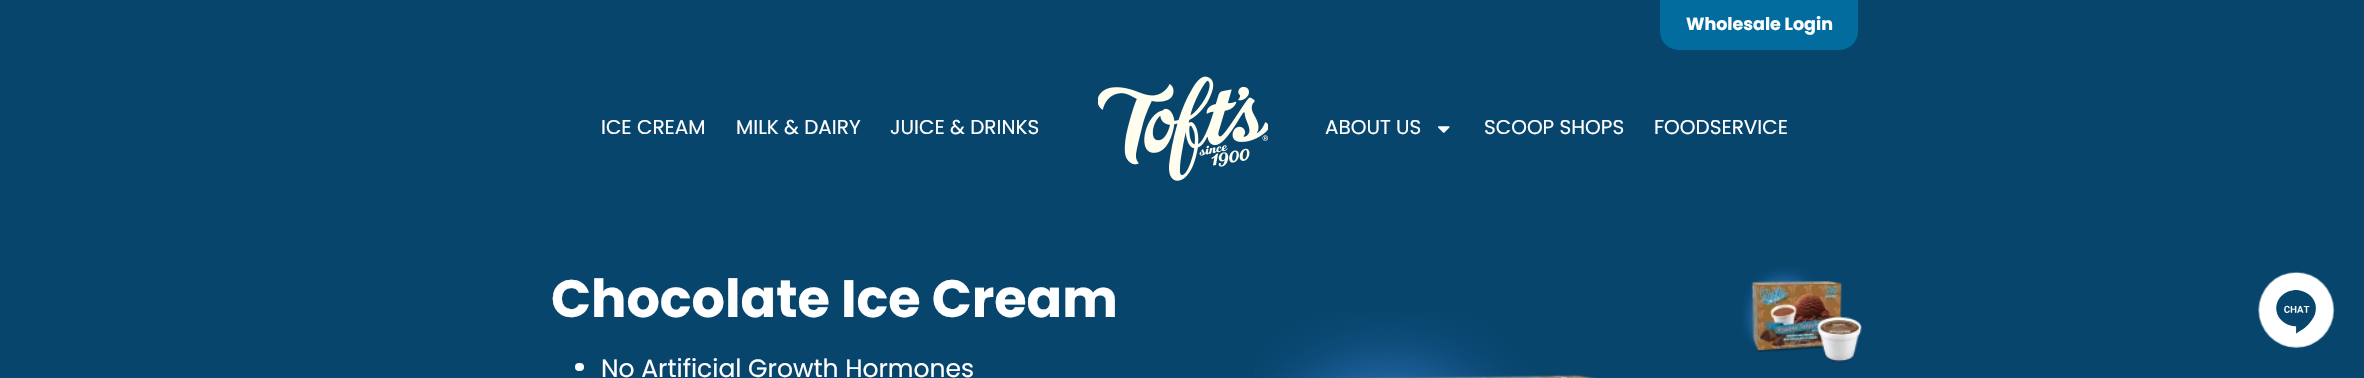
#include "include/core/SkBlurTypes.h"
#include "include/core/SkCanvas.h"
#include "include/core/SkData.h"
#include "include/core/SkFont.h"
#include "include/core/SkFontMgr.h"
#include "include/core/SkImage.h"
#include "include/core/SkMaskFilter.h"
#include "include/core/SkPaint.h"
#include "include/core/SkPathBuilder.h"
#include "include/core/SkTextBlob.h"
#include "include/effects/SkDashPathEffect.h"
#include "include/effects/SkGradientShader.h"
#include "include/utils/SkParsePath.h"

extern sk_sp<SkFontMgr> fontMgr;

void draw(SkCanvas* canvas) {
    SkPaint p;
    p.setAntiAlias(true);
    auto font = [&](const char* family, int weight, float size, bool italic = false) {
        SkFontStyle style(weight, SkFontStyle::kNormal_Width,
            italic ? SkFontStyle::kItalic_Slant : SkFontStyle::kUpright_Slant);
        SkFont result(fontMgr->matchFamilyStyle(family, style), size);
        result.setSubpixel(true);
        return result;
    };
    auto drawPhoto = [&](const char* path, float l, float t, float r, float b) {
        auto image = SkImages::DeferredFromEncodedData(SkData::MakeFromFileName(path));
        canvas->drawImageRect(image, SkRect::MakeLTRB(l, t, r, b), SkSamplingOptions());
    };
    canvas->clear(0xFF07456D);
    p.setColor(0xFF036C9F);
    canvas->drawPath(SkPathBuilder().moveTo(1660, 0).lineTo(1858, 0).lineTo(1858, 31).cubicTo(1858, 41.5f, 1849.5f, 50, 1839, 50).lineTo(1679, 50).cubicTo(1668.5f, 50, 1660, 41.5f, 1660, 31).close().detach(), p);
    auto font1 = font("Poppins", 700, 17.5f);
    p.setColor(0xFFFFFFFF);
    canvas->drawString("Wholesale Login", 1686, 30, font1, p);
    auto font2 = font("Poppins", 400, 20);
    {
        const struct { const char* s; float x, y; } items[] = {
            {"ICE CREAM", 601, 134},
            {"MILK & DAIRY", 736, 134},
            {"JUICE & DRINKS", 890, 134},
        };
        for (auto [s, x, y] : items) {
            canvas->drawString(s, x, y, font2, p);
        }
    }
    drawPhoto("media/1.png", 1098, 76, 1268, 181);
    canvas->drawString("ABOUT US", 1325, 134, font2, p);
    drawPhoto("media/2.png", 1438, 126, 1450, 133);
    canvas->drawString("SCOOP SHOPS", 1484, 134, font2, p);
    canvas->drawString("FOODSERVICE", 1654, 134, font2, p);
    auto font3 = font("Poppins", 700, 52.5f);
    canvas->drawString("Chocolate Ice Cream", 551, 317, font3, p);
    canvas->drawRoundRect(SkRect::MakeLTRB(575, 363, 584, 371), 4, 4, p);
    auto font4 = font("Poppins", 400, 25);
    canvas->drawString("No Artificial Growth Hormones", 601, 377, font4, p);
    drawPhoto("media/3.png", 1254, 312, 1599, 378);
    drawPhoto("media/4.png", 1742, 267, 1862, 363);
    drawPhoto("media/5.png", 2258, 271, 2335, 348);
}
